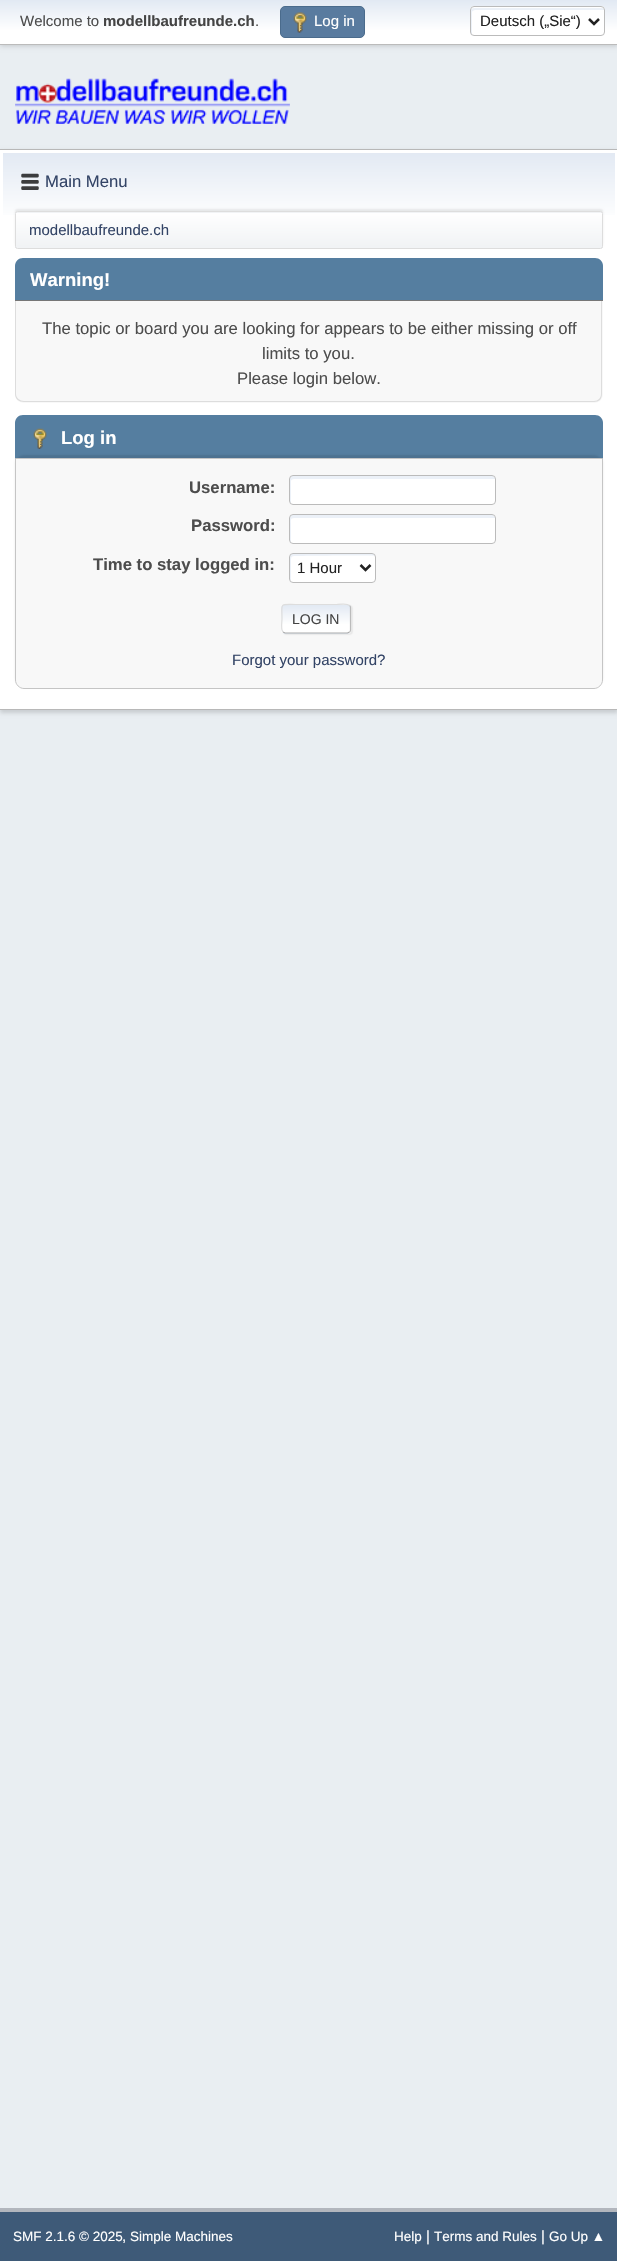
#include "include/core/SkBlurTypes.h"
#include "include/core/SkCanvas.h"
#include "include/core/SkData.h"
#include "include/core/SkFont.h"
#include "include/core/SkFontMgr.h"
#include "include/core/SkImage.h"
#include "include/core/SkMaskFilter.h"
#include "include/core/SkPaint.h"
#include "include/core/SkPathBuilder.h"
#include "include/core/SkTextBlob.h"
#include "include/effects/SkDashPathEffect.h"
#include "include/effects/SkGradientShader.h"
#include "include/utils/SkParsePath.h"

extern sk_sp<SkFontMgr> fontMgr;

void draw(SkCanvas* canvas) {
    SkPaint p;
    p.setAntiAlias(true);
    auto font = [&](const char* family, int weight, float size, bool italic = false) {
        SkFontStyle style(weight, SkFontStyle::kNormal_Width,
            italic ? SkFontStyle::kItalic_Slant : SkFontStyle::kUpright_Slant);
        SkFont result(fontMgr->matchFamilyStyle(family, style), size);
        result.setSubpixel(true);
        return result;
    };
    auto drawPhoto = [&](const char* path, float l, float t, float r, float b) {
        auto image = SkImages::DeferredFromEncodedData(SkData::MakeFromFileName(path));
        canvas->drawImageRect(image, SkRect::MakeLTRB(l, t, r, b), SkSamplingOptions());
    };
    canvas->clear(0xFFE9EEF2);
    p.setColor(0x29000000);
    p.setMaskFilter(SkMaskFilter::MakeBlur(kNormal_SkBlurStyle, 2.5f));
    canvas->drawRect(SkRect::MakeLTRB(0, 1, 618, 46), p);
    p.setMaskFilter(nullptr);
    {
        const SkColor colors[] = {0xFFE2E9F3, 0xFFFFFFFF};
        const float stops[] = {0, 0.7f};
        const SkPoint ends[] = {{309, 0}, {309, 44}};
        p.setShader(SkGradientShader::MakeLinear(ends, colors, stops, 2, SkTileMode::kClamp));
        p.setAlpha(255);
    }
    canvas->drawRect(SkRect::MakeLTRB(0, 0, 617, 44), p);
    p.setShader(nullptr);
    p.setColor(0xFFBBBBBB);
    canvas->drawRect(SkRect::MakeLTRB(0, 44, 617, 45), p);
    auto font1 = font("Liberation Sans", 400, 15);
    p.setColor(0xFF4D4D4D);
    canvas->drawString("Welcome to", 20, 26, font1, p);
    auto font2 = font("Liberation Sans", 700, 15);
    p.setColor(0xFF444444);
    canvas->drawString("modellbaufreunde.ch", 103, 26, font2, p);
    p.setColor(0xFF4D4D4D);
    canvas->drawString(".", 255, 26, font1, p);
    p.setColor(0xFF597B9F);
    canvas->drawRoundRect(SkRect::MakeLTRB(280.5f, 6.5f, 364.5f, 37.5f), 4.5f, 4.5f, p);
    p.setStyle(SkPaint::kStroke_Style);
    p.setStrokeWidth(1);
    p.setColor(0xFF4A6B8C);
    canvas->drawRoundRect(SkRect::MakeLTRB(280.5f, 6.5f, 364.5f, 37.5f), 4.5f, 4.5f, p);
    drawPhoto("media/1.png", 293, 12, 307, 33);
    p.setStyle(SkPaint::kFill_Style);
    p.setColor(0xFFFFFFFF);
    canvas->drawString("Log in", 314, 26, font1, p);
    canvas->drawRoundRect(SkRect::MakeLTRB(470, 6, 605, 36), 4, 4, p);
    p.setColor(0xFFECF1F8);
    canvas->drawPath(SkPathBuilder().moveTo(475, 10).lineTo(602, 10).lineTo(604, 10).cubicTo(604, 9, 603, 8, 602, 8).lineTo(474, 8).cubicTo(472, 8, 471, 9, 471, 10).lineTo(471, 32).cubicTo(471, 33, 471, 34, 472, 35).lineTo(472, 12).cubicTo(472, 11, 474, 10, 475, 10).close().detach(), p);
    p.setStyle(SkPaint::kStroke_Style);
    p.setColor(0xFFBBBBBB);
    canvas->drawRoundRect(SkRect::MakeLTRB(470.5f, 6.5f, 604.5f, 35.5f), 3.5f, 3.5f, p);
    p.setStrokeWidth(2.5f);
    p.setColor(0xFF222222);
    canvas->drawPath(SkPathBuilder().moveTo(589, 19).lineTo(594, 24).lineTo(599, 19).detach(), p);
    p.setStyle(SkPaint::kFill_Style);
    canvas->drawString("Deutsch („Sie“)", 480, 26, font1, p);
    drawPhoto("media/2.png", 15, 78, 290, 124);
    p.setColor(0x24000000);
    p.setMaskFilter(SkMaskFilter::MakeBlur(kNormal_SkBlurStyle, 2));
    canvas->drawRect(SkRect::MakeLTRB(0, 151, 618, 713), p);
    p.setMaskFilter(nullptr);
    {
        const struct { float l, t, r, b; SkColor color; } items[] = {
            {0, 150, 617, 709, 0xFFFFFFFF},
            {0, 149, 617, 150, 0xFFB8B8B8},
            {0, 709, 617, 710, 0xFFB8B8B8},
        };
        for (auto [l, t, r, b, color] : items) {
            p.setColor(color);
            canvas->drawRect(SkRect::MakeLTRB(l, t, r, b), p);
        }
    }
    {
        const SkColor colors[] = {0xFFE2E9F3, 0xFFFFFFFF};
        const float stops[] = {0, 0.7f};
        const SkPoint ends[] = {{309, 152}, {309, 251}};
        p.setShader(SkGradientShader::MakeLinear(ends, colors, stops, 2, SkTileMode::kClamp));
        p.setAlpha(255);
    }
    canvas->drawRect(SkRect::MakeLTRB(3, 153, 615, 215), p);
    drawPhoto("media/3.png", 21, 173, 39, 190);
    auto font3 = font("Liberation Sans", 400, 16.7f);
    p.setShader(nullptr);
    p.setColor(0xFF334466);
    canvas->drawString("Main Menu", 45, 187, font3, p);
    p.setColor(0x14000000);
    p.setMaskFilter(SkMaskFilter::MakeBlur(kNormal_SkBlurStyle, 1));
    canvas->drawRoundRect(SkRect::MakeLTRB(15, 209, 603, 246), 2.5f, 2.5f, p);
    p.setMaskFilter(nullptr);
    canvas->save();
    canvas->clipPath(SkPathBuilder().moveTo(17.5f, 211).lineTo(600.5f, 211).cubicTo(602, 211, 603, 212, 603, 213.5f).lineTo(603, 246.5f).cubicTo(603, 248, 602, 249, 600.5f, 249).lineTo(17.5f, 249).cubicTo(16, 249, 15, 248, 15, 246.5f).lineTo(15, 213.5f).cubicTo(15, 212, 16, 211, 17.5f, 211).close().detach(), true);
    {
        const SkColor colors[] = {0xFFFFFFFF, 0xFFF1F3F5};
        const float stops[] = {0, 0.95f};
        const SkPoint ends[] = {{309, 177}, {309, 213}};
        p.setShader(SkGradientShader::MakeLinear(ends, colors, stops, 2, SkTileMode::kClamp));
        p.setAlpha(255);
    }
    canvas->drawRect(SkRect::MakeLTRB(15, 211, 603, 213), p);
    canvas->restore();
    {
        const SkColor colors[] = {0xFFFFFFFF, 0xFFF1F3F5};
        const float stops[] = {0, 0.95f};
        const SkPoint ends[] = {{309, 212}, {309, 248}};
        p.setShader(SkGradientShader::MakeLinear(ends, colors, stops, 2, SkTileMode::kClamp));
        p.setAlpha(255);
    }
    canvas->drawRect(SkRect::MakeLTRB(15, 213, 603, 248), p);
    p.setStyle(SkPaint::kStroke_Style);
    p.setStrokeWidth(1);
    p.setShader(nullptr);
    p.setColor(0xFFDDDDDD);
    canvas->drawRoundRect(SkRect::MakeLTRB(15.5f, 211.5f, 602.5f, 248.5f), 2, 2, p);
    p.setStyle(SkPaint::kFill_Style);
    p.setColor(0xFF334466);
    canvas->drawString("modellbaufreunde.ch", 29, 235, font1, p);
    p.setColor(0xFF557EA0);
    canvas->drawPath(SkPathBuilder().moveTo(23, 258).lineTo(595, 258).cubicTo(599.5f, 258, 603, 261.5f, 603, 266).lineTo(603, 301).lineTo(15, 301).lineTo(15, 266).cubicTo(15, 261.5f, 18.5f, 258, 23, 258).close().detach(), p);
    p.setColor(0xFF777777);
    canvas->drawRect(SkRect::MakeLTRB(15, 300, 603, 301), p);
    auto font4 = font("Liberation Sans", 700, 18.5f);
    p.setColor(0xFFFFFFFF);
    canvas->drawString("Warning!", 30, 286, font4, p);
    p.setColor(0xFFF8F8F8);
    canvas->drawPath(SkPathBuilder().moveTo(15, 301).lineTo(603, 301).lineTo(603, 394).cubicTo(603, 399, 599, 403, 594, 403).lineTo(24, 403).cubicTo(19, 403, 15, 399, 15, 394).close().detach(), p);
    p.setColor(0xFFDDDDDD);
    canvas->drawPath(SkPathBuilder(SkPathFillType::kEvenOdd).moveTo(15, 301).lineTo(602, 301).lineTo(602, 394).cubicTo(602, 399, 599, 402, 594, 402).lineTo(24, 402).cubicTo(19, 402, 15, 399, 15, 394).close().moveTo(16, 301).lineTo(601, 301).lineTo(601, 394).cubicTo(601, 398, 598, 401, 594, 401).lineTo(24, 401).cubicTo(20, 401, 16, 398, 16, 394).close().detach(), p);
    p.setColor(0xFF4D4D4D);
    {
        const struct { const char* s; float x, y; } items[] = {
            {"The topic or board you are looking for appears to be either missing or off", 42, 334},
            {"limits to you.", 262, 359},
            {"Please login below.", 237, 384},
        };
        for (auto [s, x, y] : items) {
            canvas->drawString(s, x, y, font3, p);
        }
    }
    p.setColor(0xFF557EA0);
    canvas->drawPath(SkPathBuilder().moveTo(23, 415).lineTo(595, 415).cubicTo(599.5f, 415, 603, 418.5f, 603, 423).lineTo(603, 459).lineTo(15, 459).lineTo(15, 423).cubicTo(15, 418.5f, 18.5f, 415, 23, 415).close().detach(), p);
    drawPhoto("media/4.png", 33, 428, 47, 449);
    p.setColor(0xFFFFFFFF);
    canvas->drawString("Log in", 61, 444, font4, p);
    p.setColor(0x1A000000);
    p.setMaskFilter(SkMaskFilter::MakeBlur(kNormal_SkBlurStyle, 1));
    canvas->drawRoundRect(SkRect::MakeLTRB(15, 455, 603, 686), 9, 9, p);
    p.setMaskFilter(nullptr);
    p.setColor(0xFFF8F8F8);
    canvas->drawPath(SkPathBuilder().moveTo(15.5f, 458.5f).lineTo(602.5f, 458.5f).lineTo(602.5f, 680).cubicTo(602.5f, 684.5f, 598.5f, 688.5f, 594, 688.5f).lineTo(24, 688.5f).cubicTo(19.5f, 688.5f, 15.5f, 684.5f, 15.5f, 680).close().detach(), p);
    p.setStyle(SkPaint::kStroke_Style);
    p.setColor(0xFFC5C5C5);
    canvas->drawPath(SkPathBuilder().moveTo(15.5f, 458.5f).lineTo(602.5f, 458.5f).lineTo(602.5f, 680).cubicTo(602.5f, 684.5f, 598.5f, 688.5f, 594, 688.5f).lineTo(24, 688.5f).cubicTo(19.5f, 688.5f, 15.5f, 684.5f, 15.5f, 680).close().detach(), p);
    auto font5 = font("Liberation Sans", 700, 16.7f);
    p.setStyle(SkPaint::kFill_Style);
    p.setColor(0xFF4D4D4D);
    canvas->drawString("Username:", 189, 493, font5, p);
    p.setColor(0xFFFFFFFF);
    canvas->drawRoundRect(SkRect::MakeLTRB(289, 475, 496, 505), 4, 4, p);
    p.setColor(0xFFECF1F8);
    canvas->drawPath(SkPathBuilder().moveTo(294, 479).lineTo(495, 479).cubicTo(495, 478, 494, 476, 492, 476).lineTo(292, 476).cubicTo(289, 476, 290, 480, 290, 482).lineTo(290, 502).lineTo(291, 504).lineTo(291, 481).cubicTo(291, 480, 292, 479, 294, 479).close().detach(), p);
    p.setStyle(SkPaint::kStroke_Style);
    p.setColor(0xFFBBBBBB);
    canvas->drawRoundRect(SkRect::MakeLTRB(289.5f, 475.5f, 495.5f, 504.5f), 3.5f, 3.5f, p);
    p.setStyle(SkPaint::kFill_Style);
    p.setColor(0xFF4D4D4D);
    canvas->drawString("Password:", 191, 531, font5, p);
    p.setColor(0xFFFFFFFF);
    canvas->drawRoundRect(SkRect::MakeLTRB(289, 514, 496, 544), 4, 4, p);
    p.setColor(0xFFECF1F8);
    canvas->drawPath(SkPathBuilder().moveTo(294, 518).lineTo(495, 518).cubicTo(495, 517, 494, 515, 492, 515).lineTo(292, 515).cubicTo(289, 515, 290, 519, 290, 521).lineTo(290, 529).cubicTo(290, 531, 289, 541, 291, 543).lineTo(291, 524).cubicTo(291, 521, 290, 518, 294, 518).close().detach(), p);
    p.setStyle(SkPaint::kStroke_Style);
    p.setColor(0xFFBBBBBB);
    canvas->drawRoundRect(SkRect::MakeLTRB(289.5f, 514.5f, 495.5f, 543.5f), 3.5f, 3.5f, p);
    p.setStyle(SkPaint::kFill_Style);
    p.setColor(0xFF4D4D4D);
    canvas->drawString("Time to stay logged in:", 93, 570, font5, p);
    p.setColor(0xFFFFFFFF);
    canvas->drawRoundRect(SkRect::MakeLTRB(289, 553, 376, 583), 4, 4, p);
    p.setColor(0xFFECF1F8);
    canvas->drawPath(SkPathBuilder().moveTo(294, 556).cubicTo(302, 556, 374, 555, 375, 556).cubicTo(375, 555, 374, 554, 372, 554).lineTo(292, 554).cubicTo(291, 554, 290, 555, 290, 556).lineTo(290, 578).cubicTo(290, 579, 290, 580, 291, 581).lineTo(291, 559).cubicTo(291, 557, 292, 556, 294, 556).close().detach(), p);
    p.setStyle(SkPaint::kStroke_Style);
    p.setColor(0xFFBBBBBB);
    canvas->drawRoundRect(SkRect::MakeLTRB(289.5f, 553.5f, 375.5f, 582.5f), 3.5f, 3.5f, p);
    p.setStrokeWidth(2.5f);
    p.setColor(0xFF222222);
    canvas->drawPath(SkPathBuilder().moveTo(360.5f, 565).lineTo(365.5f, 570).lineTo(370.5f, 565).detach(), p);
    p.setStyle(SkPaint::kFill_Style);
    canvas->drawString("1 Hour", 297, 573, font1, p);
    p.setColor(0x91DDDDDD);
    p.setMaskFilter(SkMaskFilter::MakeBlur(kNormal_SkBlurStyle, 0.5f));
    canvas->drawRoundRect(SkRect::MakeLTRB(283, 605, 353, 635), 4, 4, p);
    p.setMaskFilter(nullptr);
    p.setColor(0xFFFFFFFF);
    canvas->drawRoundRect(SkRect::MakeLTRB(281, 604, 351, 634), 4, 4, p);
    canvas->save();
    canvas->clipPath(SkPathBuilder().moveTo(285, 604).lineTo(347, 604).cubicTo(349, 604, 351, 606, 351, 608).lineTo(351, 630).cubicTo(351, 632, 349, 634, 347, 634).lineTo(285, 634).cubicTo(283, 634, 281, 632, 281, 630).lineTo(281, 608).cubicTo(281, 606, 283, 604, 285, 604).close().detach(), true);
    {
        const SkColor colors[] = {0xFFE2E9F3, 0xFFFFFFFF};
        const float stops[] = {0, 0.7f};
        const SkPoint ends[] = {{316, 605}, {316, 633}};
        p.setShader(SkGradientShader::MakeLinear(ends, colors, stops, 2, SkTileMode::kClamp));
        p.setAlpha(255);
    }
    canvas->drawRect(SkRect::MakeLTRB(281, 605, 351, 633), p);
    {
        const SkColor colors[] = {0xFFE2E9F3, 0xFFFFFFFF};
        const float stops[] = {0, 0.7f};
        const SkPoint ends[] = {{316, 633}, {316, 660}};
        p.setShader(SkGradientShader::MakeLinear(ends, colors, stops, 2, SkTileMode::kClamp));
        p.setAlpha(255);
    }
    canvas->drawRect(SkRect::MakeLTRB(281, 633, 351, 634), p);
    canvas->restore();
    p.setStyle(SkPaint::kStroke_Style);
    p.setStrokeWidth(1.2f);
    p.setShader(nullptr);
    p.setColor(0xFFBBBBBB);
    canvas->drawPath(SkPathBuilder().moveTo(349.5f, 605.5f).cubicTo(350.5f, 606, 350.5f, 606.5f, 350.5f, 607.5f).lineTo(350.5f, 630).cubicTo(350.5f, 631, 350.5f, 631.5f, 349.5f, 632).detach(), p);
    p.setColor(0xFFAAAAAA);
    canvas->drawPath(SkPathBuilder().moveTo(349.5f, 632).lineTo(347.5f, 633).lineTo(285, 633).lineTo(283, 632).detach(), p);
    p.setColor(0xFFDDDDDD);
    canvas->drawPath(SkPathBuilder().moveTo(283, 632).cubicTo(280.5f, 630, 282, 621.5f, 282, 619).cubicTo(282, 602.5f, 279, 604.5f, 295.5f, 604.5f).lineTo(337, 604.5f).cubicTo(337.5f, 604.5f, 347, 603, 349.5f, 605.5f).detach(), p);
    auto font6 = font("Liberation Sans", 400, 14);
    p.setStyle(SkPaint::kFill_Style);
    p.setColor(0xFF444444);
    canvas->drawString("LOG IN", 292, 624, font6, p);
    p.setColor(0xFF334466);
    canvas->drawString("Forgot your password?", 232, 665, font1, p);
    p.setColor(0xFF3E5A78);
    canvas->drawRect(SkRect::MakeLTRB(0, 2212, 617, 2261), p);
    p.setColor(0xFFB2B6BD);
    canvas->drawRect(SkRect::MakeLTRB(0, 2208, 617, 2212), p);
    auto font7 = font("Liberation Sans", 400, 13.5f);
    p.setColor(0xFFFFFFFF);
    canvas->drawString("SMF 2.1.6 © 2025", 13, 2241, font7, p);
    canvas->drawString(",", 122, 2241, font1, p);
    canvas->drawString("Simple Machines", 130, 2241, font7, p);
    canvas->drawString("Help", 394, 2241, font7, p);
    canvas->drawString("|", 426, 2241, font1, p);
    canvas->drawString("Terms and Rules", 434, 2241, font7, p);
    canvas->drawString("|", 541, 2241, font1, p);
    canvas->drawString("Go Up ▲", 549, 2241, font7, p);
}
